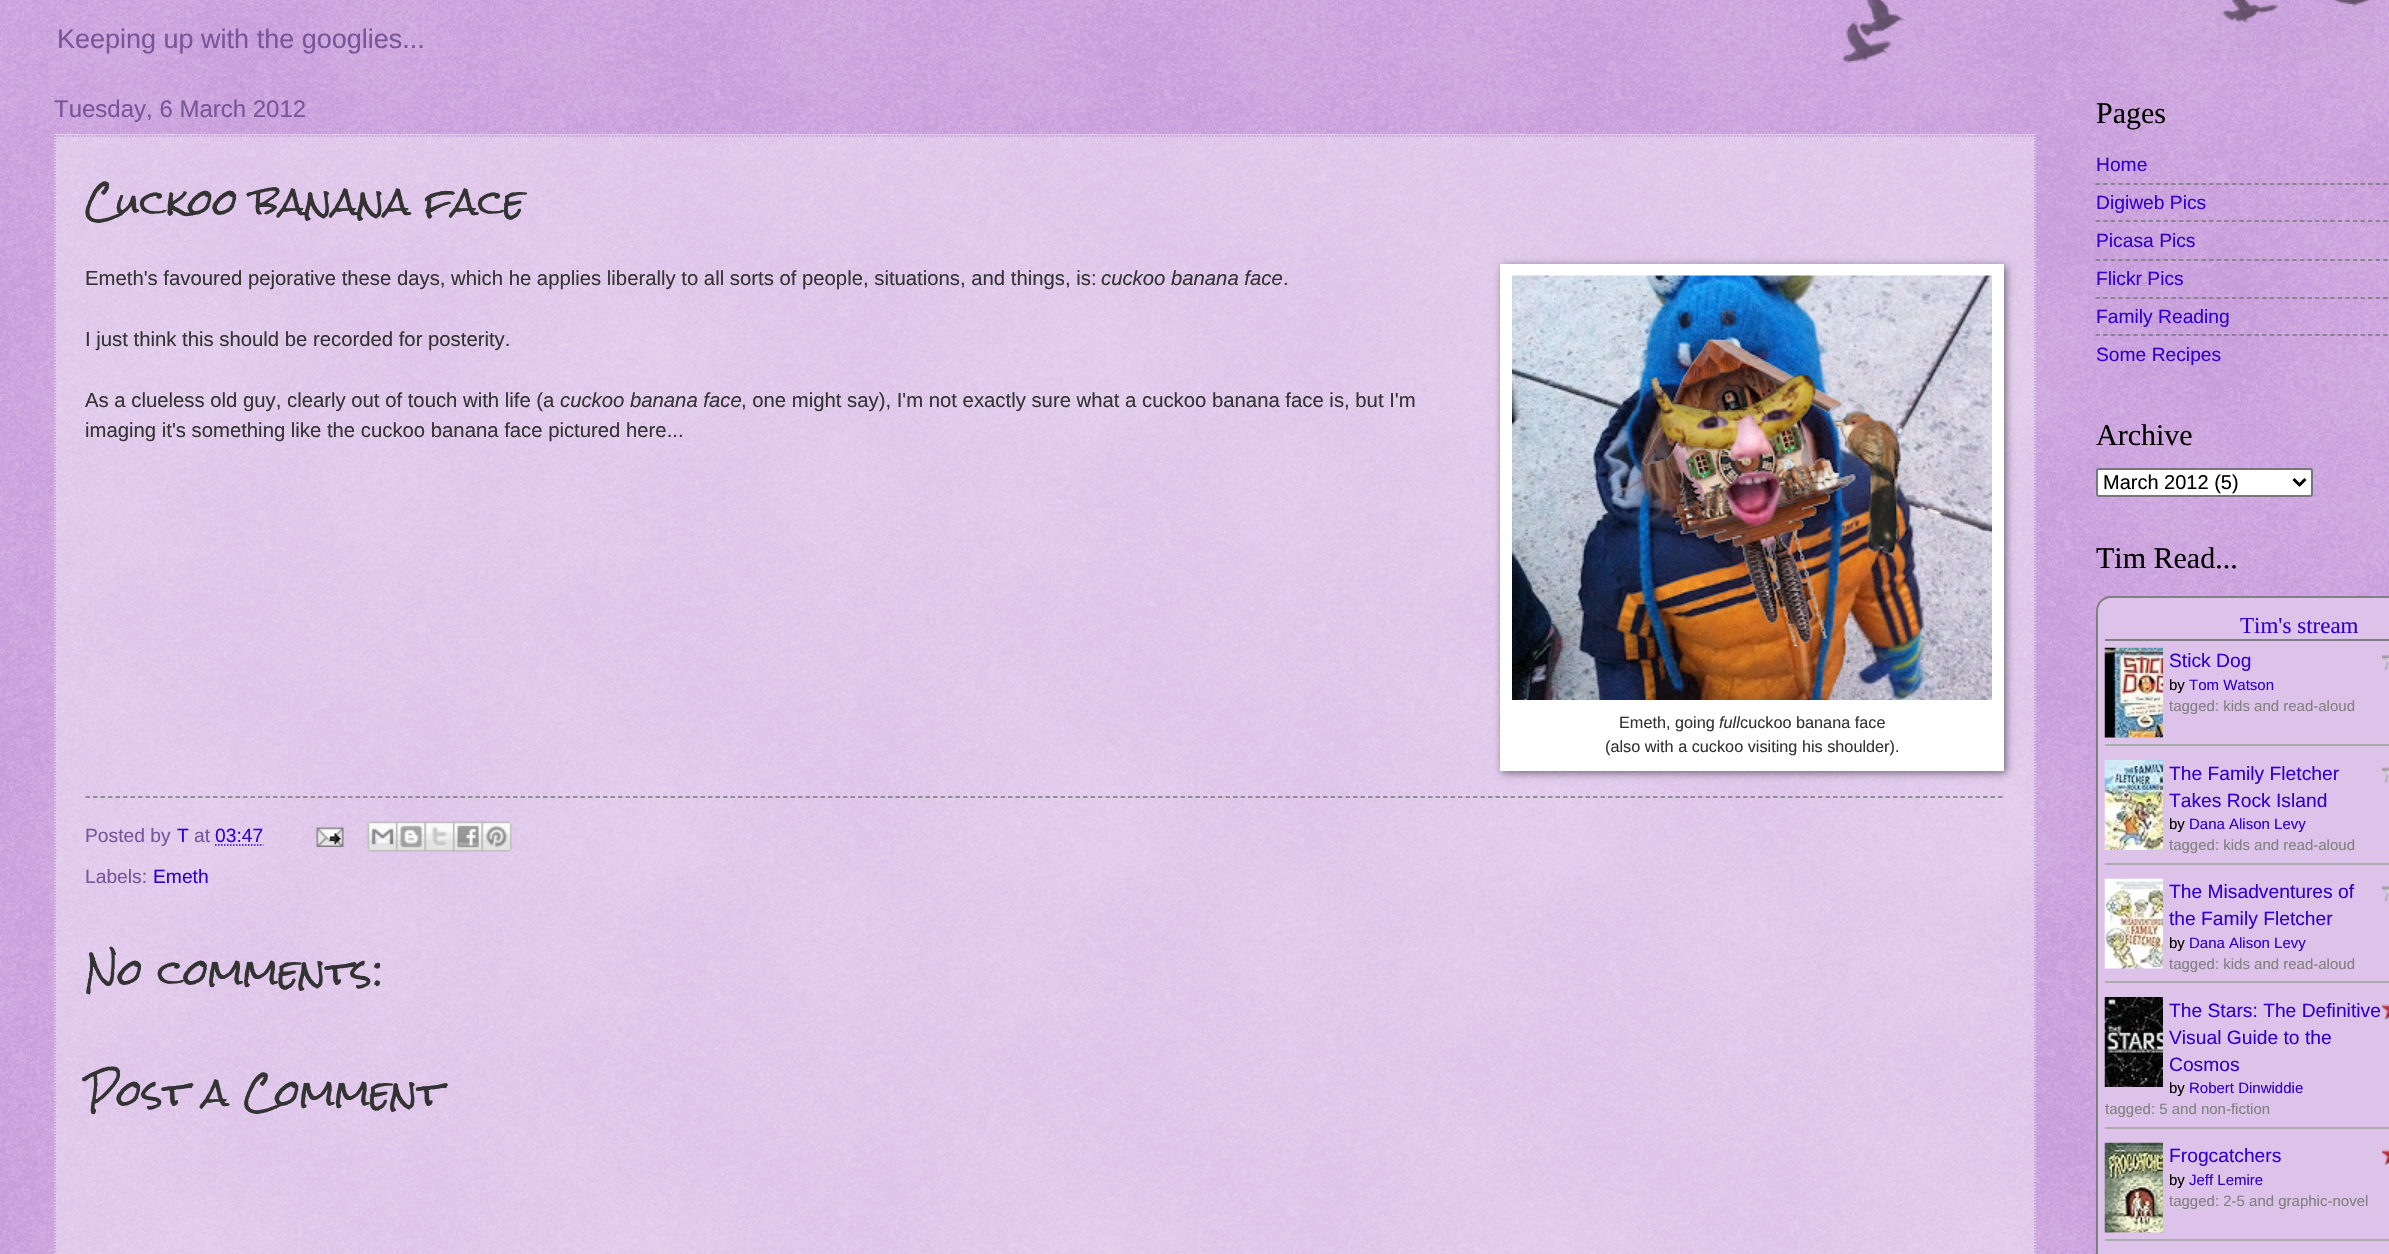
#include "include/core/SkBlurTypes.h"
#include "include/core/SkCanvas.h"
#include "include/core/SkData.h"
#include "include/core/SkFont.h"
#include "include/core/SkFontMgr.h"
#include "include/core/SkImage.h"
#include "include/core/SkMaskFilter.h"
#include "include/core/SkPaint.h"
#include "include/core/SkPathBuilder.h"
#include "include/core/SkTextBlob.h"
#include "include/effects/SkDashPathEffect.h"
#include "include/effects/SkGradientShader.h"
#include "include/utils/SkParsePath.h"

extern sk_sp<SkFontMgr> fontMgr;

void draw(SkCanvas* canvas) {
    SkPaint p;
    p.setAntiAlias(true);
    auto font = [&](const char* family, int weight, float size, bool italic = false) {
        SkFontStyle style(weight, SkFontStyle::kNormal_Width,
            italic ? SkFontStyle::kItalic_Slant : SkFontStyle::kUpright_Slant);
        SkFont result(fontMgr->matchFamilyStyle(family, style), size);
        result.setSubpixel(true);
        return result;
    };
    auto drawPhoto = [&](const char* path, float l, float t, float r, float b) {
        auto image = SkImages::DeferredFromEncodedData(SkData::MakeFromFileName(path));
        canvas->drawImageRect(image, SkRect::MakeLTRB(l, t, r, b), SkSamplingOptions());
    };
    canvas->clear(0xFF9F54C0);
    drawPhoto("media/1.png", 0, 0, 2389, 1254);
    drawPhoto("media/2.png", 1842, 0, 2375, 63);
    auto font1 = font("Liberation Sans", 400, 27);
    p.setColor(0xFF765599);
    canvas->drawString("Keeping up with the googlies...", 57, 48, font1, p);
    auto font2 = font("Liberation Sans", 400, 24);
    canvas->drawString("Tuesday, 6 March 2012", 54, 117, font2, p);
    p.setColor(0x66FFFFFF);
    canvas->drawRect(SkRect::MakeLTRB(54, 134, 2036, 1254), p);
    p.setStyle(SkPaint::kStroke_Style);
    p.setStrokeWidth(1.5f);
    p.setColor(0xFFBA99CC);
    p.setPathEffect(SkDashPathEffect::Make({{1.5f, 1.5f}}, 0));
    canvas->drawPath(SkPathBuilder().moveTo(54, 136).lineTo(2035.5f, 136).detach(), p);
    p.setPathEffect(nullptr);
    p.setPathEffect(SkDashPathEffect::Make({{1.5f, 1.5f}}, 0));
    canvas->drawPath(SkPathBuilder().moveTo(2035, 135).lineTo(2035, 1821).detach(), p);
    p.setPathEffect(nullptr);
    p.setPathEffect(SkDashPathEffect::Make({{1.5f, 1.5f}}, 0));
    canvas->drawPath(SkPathBuilder().moveTo(55, 135).lineTo(55, 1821).detach(), p);
    p.setPathEffect(nullptr);
    auto font3 = font("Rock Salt", 400, 36);
    p.setStyle(SkPaint::kFill_Style);
    p.setColor(0xFF333333);
    canvas->drawString("Cuckoo banana face", 85, 216, font3, p);
    auto font4 = font("Liberation Sans", 400, 20.3f);
    canvas->drawString("Emeth's favoured pejorative these days, which he applies liberally to all sorts of people, situations, and things, is:", 85, 285, font4, p);
    auto font5 = font("Liberation Sans", 400, 20.3f, true);
    canvas->drawString("cuckoo banana face", 1101, 285, font5, p);
    {
        const struct { const char* s; float x, y; } items[] = {
            {".", 1283, 285},
            {"I just think this should be recorded for posterity.", 85, 346},
            {"As a clueless old guy, clearly out of touch with life (a", 85, 407},
        };
        for (auto [s, x, y] : items) {
            canvas->drawString(s, x, y, font4, p);
        }
    }
    canvas->drawString("cuckoo banana face", 560, 407, font5, p);
    canvas->drawString(", one might say), I'm not exactly sure what a cuckoo banana face is, but I'm", 741, 407, font4, p);
    canvas->drawString("imaging it's something like the cuckoo banana face pictured here...", 85, 437, font4, p);
    p.setColor(0x80000000);
    p.setMaskFilter(SkMaskFilter::MakeBlur(kNormal_SkBlurStyle, 4));
    canvas->drawRect(SkRect::MakeLTRB(1502, 266, 2006, 773), p);
    p.setMaskFilter(nullptr);
    p.setColor(0xFFFFFFFF);
    canvas->drawRect(SkRect::MakeLTRB(1500, 264, 2004, 771), p);
    drawPhoto("media/3.png", 1512, 275, 1992, 700);
    auto font6 = font("Liberation Sans", 400, 16.25f);
    p.setColor(0xFF333333);
    canvas->drawString("Emeth, going", 1619, 728, font6, p);
    auto font7 = font("Liberation Sans", 400, 16.25f, true);
    canvas->drawString("full", 1719, 728, font7, p);
    canvas->drawString("cuckoo banana face", 1740, 728, font6, p);
    canvas->drawString("(also with a cuckoo visiting his shoulder).", 1605, 752, font6, p);
    p.setStyle(SkPaint::kStroke_Style);
    p.setColor(0xFF777777);
    p.setPathEffect(SkDashPathEffect::Make({{4.5f, 3}}, 0));
    canvas->drawPath(SkPathBuilder().moveTo(85.5f, 797).lineTo(2004, 797).detach(), p);
    p.setPathEffect(nullptr);
    auto font8 = font("Liberation Sans", 400, 19.25f);
    p.setStyle(SkPaint::kFill_Style);
    p.setColor(0xFF765599);
    canvas->drawString("Posted by", 85, 842, font8, p);
    p.setColor(0xFF3100CC);
    canvas->drawString("T", 177, 842, font8, p);
    p.setColor(0xFF765599);
    canvas->drawString("at", 194, 842, font8, p);
    p.setColor(0xFF3100CC);
    canvas->drawString("03:47", 215, 842, font8, p);
    p.setStyle(SkPaint::kStroke_Style);
    p.setPathEffect(SkDashPathEffect::Make({{1.5f, 1.5f}}, 0));
    canvas->drawPath(SkPathBuilder().moveTo(215, 845).lineTo(263.5f, 845).detach(), p);
    p.setPathEffect(nullptr);
    drawPhoto("media/4.png", 316, 827, 344, 847);
    drawPhoto("media/5.png", 367, 821, 398, 852);
    drawPhoto("media/6.png", 396, 821, 426, 852);
    drawPhoto("media/7.png", 424, 821, 455, 852);
    drawPhoto("media/8.png", 453, 821, 483, 852);
    drawPhoto("media/9.png", 481, 821, 512, 852);
    p.setStyle(SkPaint::kFill_Style);
    p.setColor(0xFF765599);
    canvas->drawString("Labels:", 85, 883, font8, p);
    p.setColor(0xFF3100CC);
    canvas->drawString("Emeth", 153, 883, font8, p);
    p.setColor(0xFF333333);
    canvas->drawString("No comments:", 85, 986, font3, p);
    canvas->drawString("Post a Comment", 85, 1107, font3, p);
    auto font9 = font("Liberation Serif", 400, 30);
    p.setColor(0xFF000000);
    canvas->drawString("Pages", 2096, 123, font9, p);
    p.setColor(0xFF3100CC);
    canvas->drawString("Home", 2096, 171, font8, p);
    p.setStyle(SkPaint::kStroke_Style);
    p.setColor(0xFF777777);
    p.setPathEffect(SkDashPathEffect::Make({{4.5f, 3.07f}}, 0));
    canvas->drawPath(SkPathBuilder().moveTo(2095.5f, 184).lineTo(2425.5f, 184).detach(), p);
    p.setPathEffect(nullptr);
    p.setStyle(SkPaint::kFill_Style);
    p.setColor(0xFF3100CC);
    canvas->drawString("Digiweb Pics", 2096, 209, font8, p);
    p.setStyle(SkPaint::kStroke_Style);
    p.setColor(0xFF777777);
    p.setPathEffect(SkDashPathEffect::Make({{4.5f, 3.07f}}, 0));
    canvas->drawPath(SkPathBuilder().moveTo(2095.5f, 221).lineTo(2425.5f, 221).detach(), p);
    p.setPathEffect(nullptr);
    p.setStyle(SkPaint::kFill_Style);
    p.setColor(0xFF3100CC);
    canvas->drawString("Picasa Pics", 2096, 247, font8, p);
    p.setStyle(SkPaint::kStroke_Style);
    p.setColor(0xFF777777);
    p.setPathEffect(SkDashPathEffect::Make({{4.5f, 3.07f}}, 0));
    canvas->drawPath(SkPathBuilder().moveTo(2095.5f, 260).lineTo(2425.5f, 260).detach(), p);
    p.setPathEffect(nullptr);
    p.setStyle(SkPaint::kFill_Style);
    p.setColor(0xFF3100CC);
    canvas->drawString("Flickr Pics", 2096, 285, font8, p);
    p.setStyle(SkPaint::kStroke_Style);
    p.setColor(0xFF777777);
    p.setPathEffect(SkDashPathEffect::Make({{4.5f, 3.07f}}, 0));
    canvas->drawPath(SkPathBuilder().moveTo(2095.5f, 298).lineTo(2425.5f, 298).detach(), p);
    p.setPathEffect(nullptr);
    p.setStyle(SkPaint::kFill_Style);
    p.setColor(0xFF3100CC);
    canvas->drawString("Family Reading", 2096, 323, font8, p);
    p.setStyle(SkPaint::kStroke_Style);
    p.setColor(0xFF777777);
    p.setPathEffect(SkDashPathEffect::Make({{4.5f, 3.07f}}, 0));
    canvas->drawPath(SkPathBuilder().moveTo(2095.5f, 335).lineTo(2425.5f, 335).detach(), p);
    p.setPathEffect(nullptr);
    p.setStyle(SkPaint::kFill_Style);
    p.setColor(0xFF3100CC);
    canvas->drawString("Some Recipes", 2096, 361, font8, p);
    p.setColor(0xFF000000);
    canvas->drawString("Archive", 2096, 445, font9, p);
    p.setColor(0xFFFFFFFF);
    canvas->drawRoundRect(SkRect::MakeLTRB(2097, 469, 2312, 496), 2, 2, p);
    p.setStyle(SkPaint::kStroke_Style);
    p.setStrokeWidth(2);
    p.setColor(0xFF767676);
    canvas->drawRoundRect(SkRect::MakeLTRB(2097, 469, 2312, 496), 2, 2, p);
    p.setStrokeWidth(3);
    p.setColor(0xFF000000);
    canvas->drawPath(SkPathBuilder().moveTo(2293.5f, 479).lineTo(2299.5f, 485).lineTo(2305.5f, 479).detach(), p);
    auto font10 = font("Liberation Sans", 400, 20);
    p.setStyle(SkPaint::kFill_Style);
    canvas->drawString("March 2012 (5)", 2103, 489, font10, p);
    canvas->drawString("Tim Read...", 2096, 568, font9, p);
    p.setColor(0xFFDDC3E9);
    canvas->drawRoundRect(SkRect::MakeLTRB(2097, 597, 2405, 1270), 14, 14, p);
    p.setStyle(SkPaint::kStroke_Style);
    p.setStrokeWidth(2);
    p.setColor(0xFF808080);
    canvas->drawRoundRect(SkRect::MakeLTRB(2097, 597, 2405, 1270), 14, 14, p);
    p.setStyle(SkPaint::kFill_Style);
    canvas->drawRect(SkRect::MakeLTRB(2105, 639, 2389, 641), p);
    auto font11 = font("Liberation Serif", 400, 23);
    p.setColor(0xFF3100CC);
    canvas->drawString("Tim's stream", 2240, 633, font11, p);
    p.setColor(0xFFAAAAAA);
    canvas->drawRect(SkRect::MakeLTRB(2105, 744, 2389, 746), p);
    drawPhoto("media/10.png", 2104, 647, 2163, 738);
    p.setColor(0xFF3100CC);
    canvas->drawString("Stick Dog", 2169, 667, font8, p);
    drawPhoto("media/11.png", 2382, 654, 2389, 670);
    auto font12 = font("Liberation Sans", 400, 15);
    p.setColor(0xFF000000);
    canvas->drawString("by", 2169, 690, font12, p);
    p.setColor(0xFF3100CC);
    canvas->drawString("Tom Watson", 2189, 690, font12, p);
    p.setColor(0xFF808080);
    canvas->drawString("tagged: kids and read-aloud", 2169, 711, font12, p);
    p.setColor(0xFFAAAAAA);
    canvas->drawRect(SkRect::MakeLTRB(2105, 863, 2389, 865), p);
    drawPhoto("media/12.png", 2104, 760, 2163, 850);
    p.setColor(0xFF3100CC);
    canvas->drawString("The Family Fletcher", 2169, 780, font8, p);
    canvas->drawString("Takes Rock Island", 2169, 807, font8, p);
    drawPhoto("media/13.png", 2382, 767, 2389, 783);
    p.setColor(0xFF000000);
    canvas->drawString("by", 2169, 829, font12, p);
    p.setColor(0xFF3100CC);
    canvas->drawString("Dana Alison Levy", 2189, 829, font12, p);
    p.setColor(0xFF808080);
    canvas->drawString("tagged: kids and read-aloud", 2169, 850, font12, p);
    p.setColor(0xFFAAAAAA);
    canvas->drawRect(SkRect::MakeLTRB(2105, 981, 2389, 983), p);
    drawPhoto("media/14.png", 2104, 878, 2163, 969);
    p.setColor(0xFF3100CC);
    canvas->drawString("The Misadventures of", 2169, 898, font8, p);
    canvas->drawString("the Family Fletcher", 2169, 925, font8, p);
    drawPhoto("media/11.png", 2382, 885, 2389, 901);
    p.setColor(0xFF000000);
    canvas->drawString("by", 2169, 948, font12, p);
    p.setColor(0xFF3100CC);
    canvas->drawString("Dana Alison Levy", 2189, 948, font12, p);
    p.setColor(0xFF808080);
    canvas->drawString("tagged: kids and read-aloud", 2169, 969, font12, p);
    p.setColor(0xFFAAAAAA);
    canvas->drawRect(SkRect::MakeLTRB(2105, 1127, 2389, 1129), p);
    drawPhoto("media/15.png", 2104, 997, 2163, 1087);
    p.setColor(0xFF3100CC);
    {
        const struct { const char* s; float x, y; } items[] = {
            {"The Stars: The Definitive", 2169, 1017},
            {"Visual Guide to the", 2169, 1044},
            {"Cosmos", 2169, 1071},
        };
        for (auto [s, x, y] : items) {
            canvas->drawString(s, x, y, font8, p);
        }
    }
    drawPhoto("media/16.png", 2382, 1004, 2389, 1020);
    p.setColor(0xFF000000);
    canvas->drawString("by", 2169, 1093, font12, p);
    p.setColor(0xFF3100CC);
    canvas->drawString("Robert Dinwiddie", 2189, 1093, font12, p);
    p.setColor(0xFF808080);
    canvas->drawString("tagged: 5 and non-fiction", 2105, 1114, font12, p);
    p.setColor(0xFFAAAAAA);
    canvas->drawRect(SkRect::MakeLTRB(2105, 1239, 2389, 1241), p);
    drawPhoto("media/17.png", 2104, 1142, 2163, 1233);
    p.setColor(0xFF3100CC);
    canvas->drawString("Frogcatchers", 2169, 1162, font8, p);
    drawPhoto("media/18.png", 2382, 1149, 2389, 1165);
    p.setColor(0xFF000000);
    canvas->drawString("by", 2169, 1185, font12, p);
    p.setColor(0xFF3100CC);
    canvas->drawString("Jeff Lemire", 2189, 1185, font12, p);
    p.setColor(0xFF808080);
    canvas->drawString("tagged: 2-5 and graphic-novel", 2169, 1206, font12, p);
}
